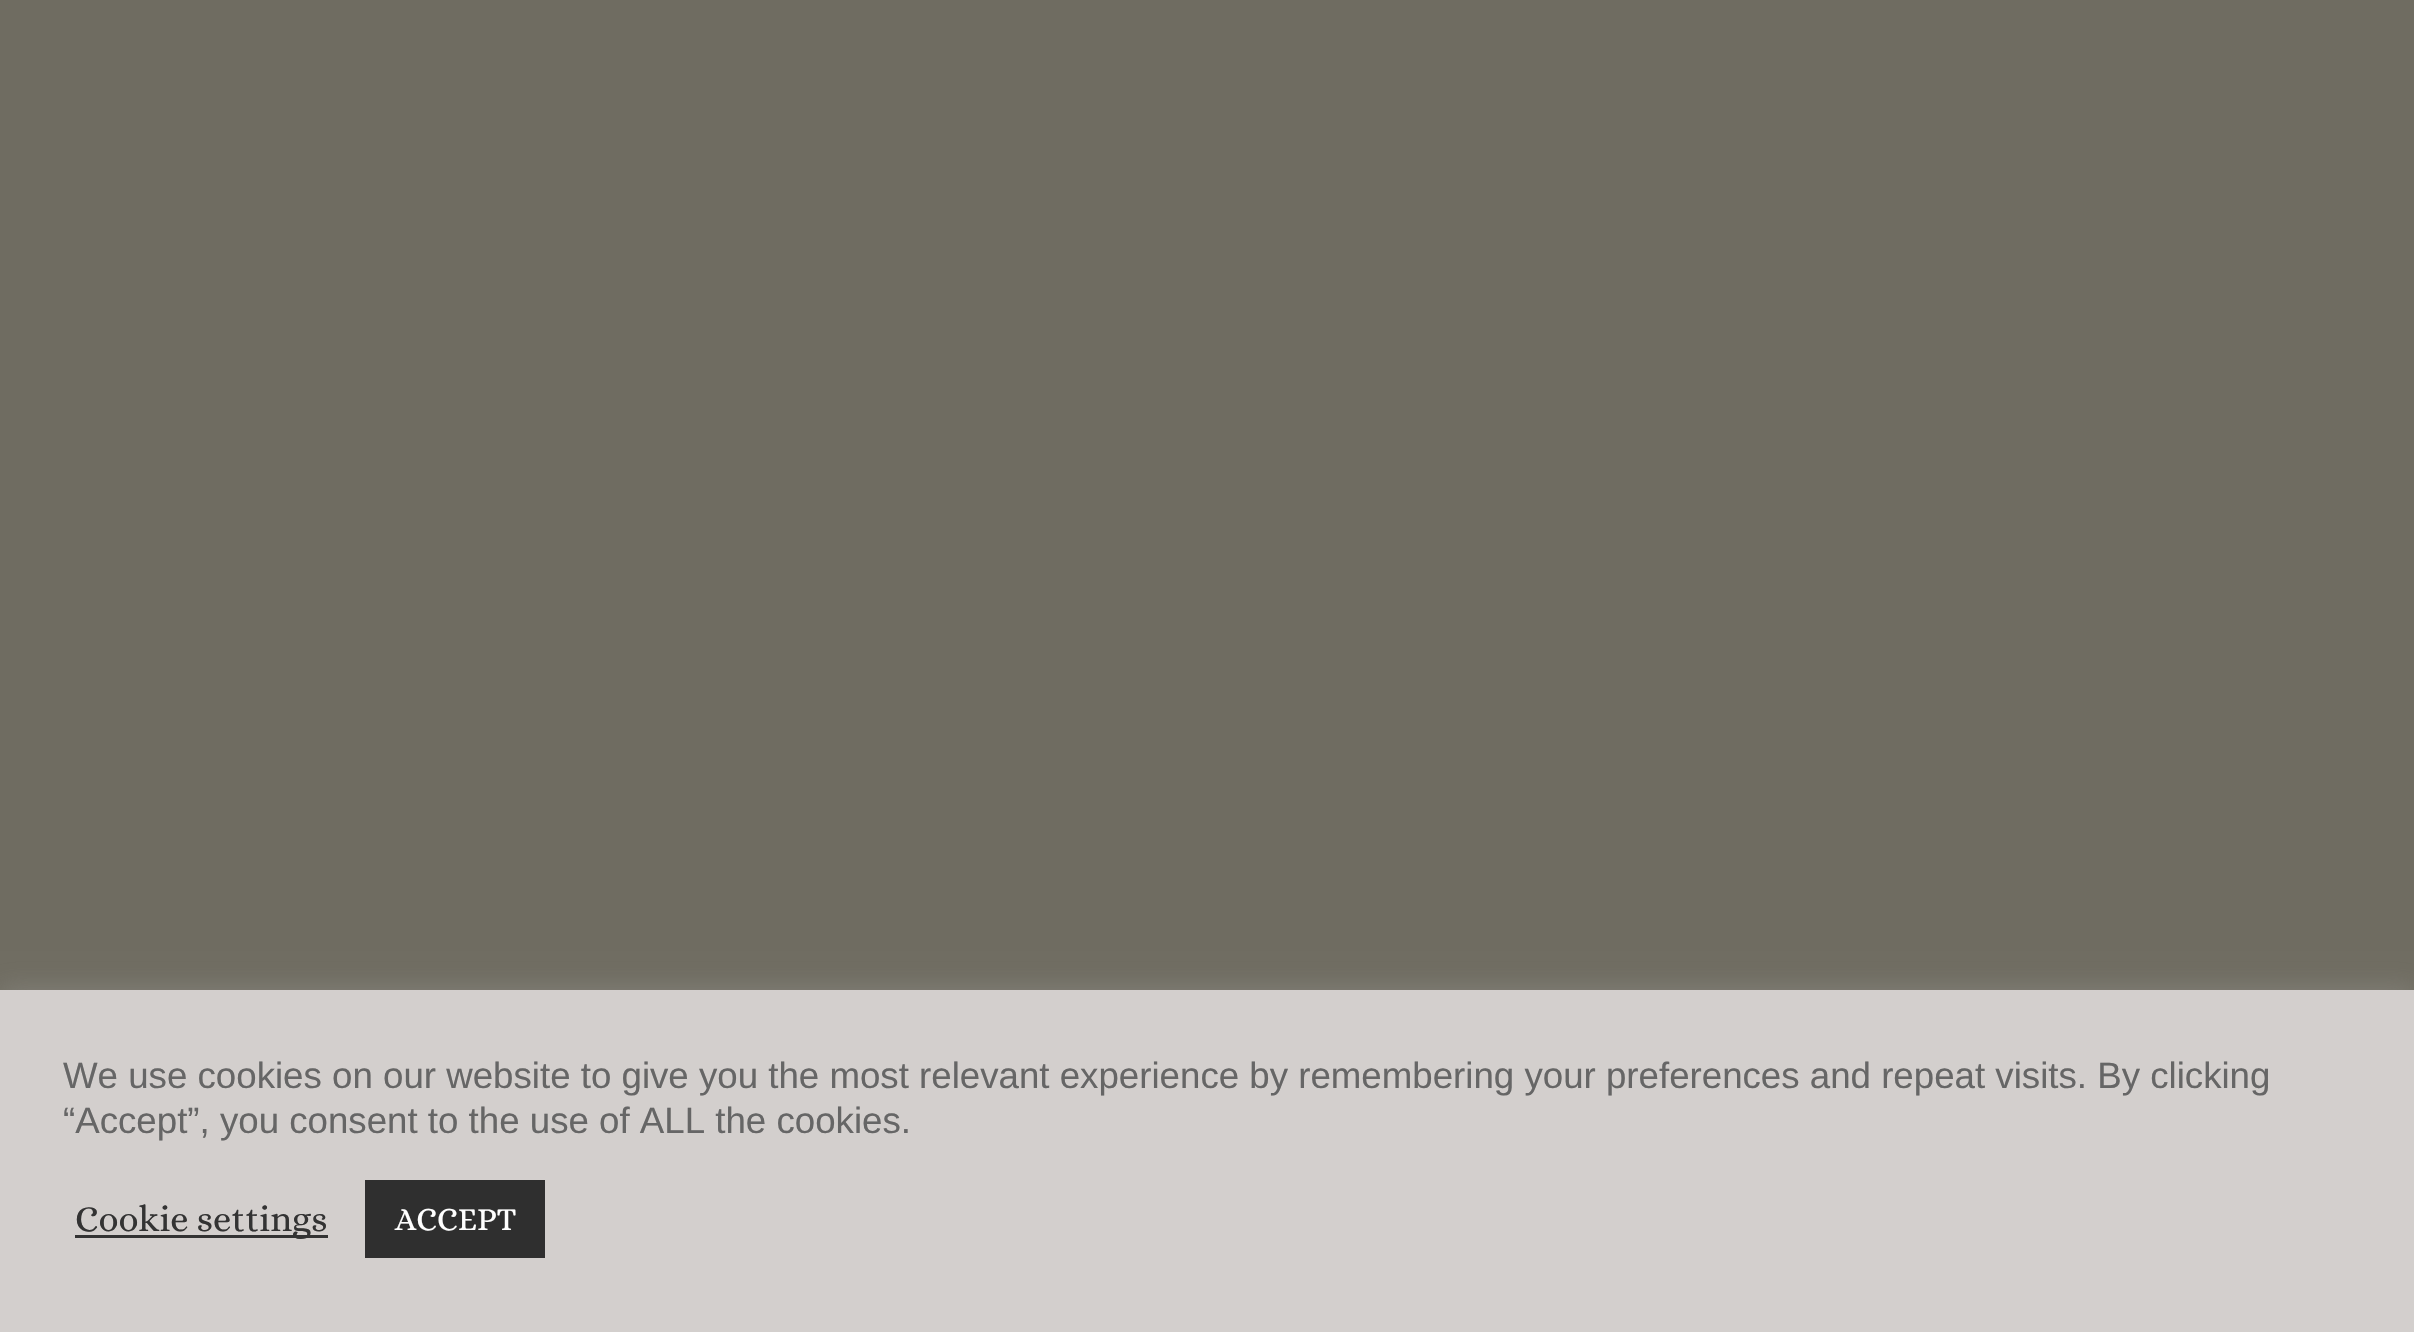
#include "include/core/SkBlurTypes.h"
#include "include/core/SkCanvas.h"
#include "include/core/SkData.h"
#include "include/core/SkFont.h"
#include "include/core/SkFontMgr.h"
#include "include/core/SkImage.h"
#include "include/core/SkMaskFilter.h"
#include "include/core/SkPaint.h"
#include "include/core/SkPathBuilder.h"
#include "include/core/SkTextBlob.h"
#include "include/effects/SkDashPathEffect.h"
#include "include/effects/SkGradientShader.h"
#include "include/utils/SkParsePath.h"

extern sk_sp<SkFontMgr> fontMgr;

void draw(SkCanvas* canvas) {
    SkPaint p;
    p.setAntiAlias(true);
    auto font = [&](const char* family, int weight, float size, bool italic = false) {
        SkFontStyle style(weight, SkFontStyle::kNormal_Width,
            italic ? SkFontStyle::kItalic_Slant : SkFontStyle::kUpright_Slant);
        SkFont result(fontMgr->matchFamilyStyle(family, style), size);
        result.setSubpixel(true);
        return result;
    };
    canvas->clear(0xFF6F6C61);
    p.setColor(0x4DACABAB);
    p.setMaskFilter(SkMaskFilter::MakeBlur(kNormal_SkBlurStyle, 12.5f));
    canvas->drawRect(SkRect::MakeLTRB(0, 988, 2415, 1330), p);
    p.setMaskFilter(nullptr);
    p.setColor(0xFFD3CFCD);
    canvas->drawRect(SkRect::MakeLTRB(0, 990, 2414, 1332), p);
    auto font1 = font("Liberation Sans", 400, 36.67f);
    p.setColor(0xFF666666);
    canvas->drawString("We use cookies on our website to give you the most relevant experience by remembering your preferences and repeat visits. By clicking", 63, 1088, font1, p);
    canvas->drawString("“Accept”, you consent to the use of ALL the cookies.", 63, 1133, font1, p);
    p.setColor(0xFF333333);
    canvas->drawRect(SkRect::MakeLTRB(75, 1235, 328, 1238), p);
    auto font2 = font("Alice", 400, 36.67f);
    canvas->drawString("Cookie settings", 75, 1231, font2, p);
    p.setColor(0xFF2F2F2F);
    canvas->drawRect(SkRect::MakeLTRB(365, 1180, 545, 1258), p);
    auto font3 = font("Alice", 400, 32.5f);
    p.setColor(0xFFFFFFFF);
    canvas->drawString("ACCEPT", 395, 1230, font3, p);
}
